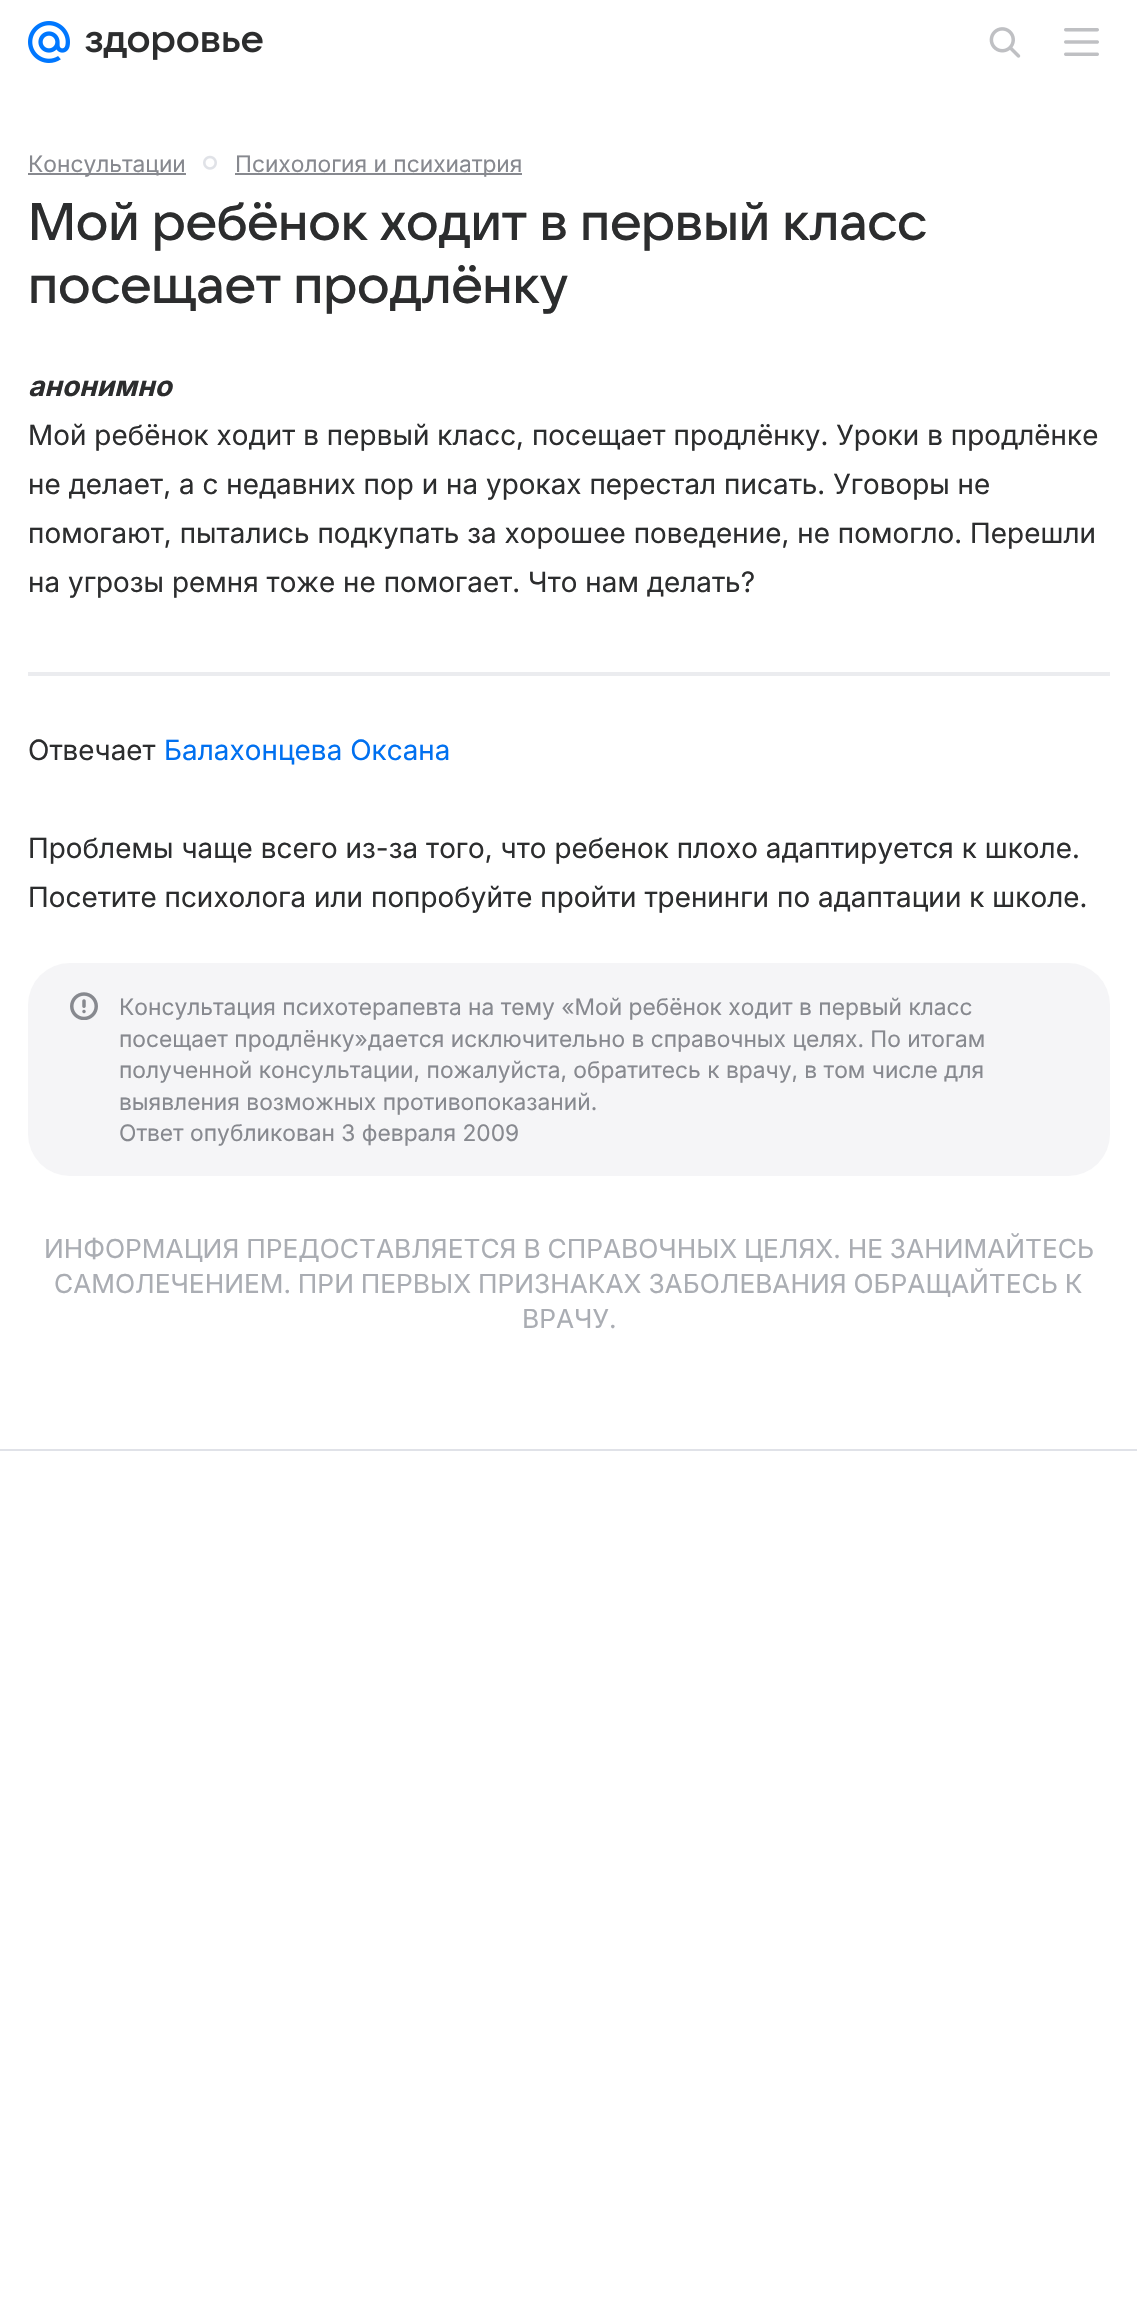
#include "include/core/SkBlurTypes.h"
#include "include/core/SkCanvas.h"
#include "include/core/SkData.h"
#include "include/core/SkFont.h"
#include "include/core/SkFontMgr.h"
#include "include/core/SkImage.h"
#include "include/core/SkMaskFilter.h"
#include "include/core/SkPaint.h"
#include "include/core/SkPathBuilder.h"
#include "include/core/SkTextBlob.h"
#include "include/effects/SkDashPathEffect.h"
#include "include/effects/SkGradientShader.h"
#include "include/utils/SkParsePath.h"

extern sk_sp<SkFontMgr> fontMgr;

void draw(SkCanvas* canvas) {
    SkPaint p;
    p.setAntiAlias(true);
    auto font = [&](const char* family, int weight, float size, bool italic = false) {
        SkFontStyle style(weight, SkFontStyle::kNormal_Width,
            italic ? SkFontStyle::kItalic_Slant : SkFontStyle::kUpright_Slant);
        SkFont result(fontMgr->matchFamilyStyle(family, style), size);
        result.setSubpixel(true);
        return result;
    };
    auto drawTracked = [&](const char* s, float x, float y, const SkFont& font, const SkPaint& ink, float letter, float word) {
        std::vector<SkGlyphID> glyphs(font.countText(s, strlen(s), SkTextEncoding::kUTF8));
        std::vector<float> xs(glyphs.size());
        font.textToGlyphs(s, strlen(s), SkTextEncoding::kUTF8, glyphs);
        font.getXPos(glyphs, xs, x);
        float extra = 0;
        for (size_t i = 0; i < glyphs.size(); i++) {
            xs[i] += extra;
            extra += letter + word * (glyphs[i] == font.unicharToGlyph(' '));
        }
        canvas->drawTextBlob(SkTextBlob::MakeFromPosHGlyphs(glyphs, xs, y, font), 0, 0, ink);
    };
    auto drawPhoto = [&](const char* path, float l, float t, float r, float b) {
        auto image = SkImages::DeferredFromEncodedData(SkData::MakeFromFileName(path));
        canvas->drawImageRect(image, SkRect::MakeLTRB(l, t, r, b), SkSamplingOptions());
    };
    canvas->clear(0xFFFFFFFF);
    drawPhoto("media/1.png", 28, 21, 70, 63);
    drawPhoto("media/2.png", 85, 31, 263, 60);
    drawPhoto("media/3.png", 989, 27, 1021, 58);
    drawPhoto("media/4.png", 1064, 28, 1099, 56);
    p.setColor(0xFF87898F);
    canvas->drawRect(SkRect::MakeLTRB(28, 173, 186, 175), p);
    auto font1 = font("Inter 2", 400, 22.75f);
    canvas->drawString("Консультации", 28, 172, font1, p);
    drawPhoto("media/5.png", 203, 155, 217, 170);
    canvas->drawRect(SkRect::MakeLTRB(235, 173, 522, 175), p);
    canvas->drawString("Психология и психиатрия", 235, 172, font1, p);
    auto font2 = font("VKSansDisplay", 500, 52.5f);
    p.setColor(0xFF2C2D2E);
    drawTracked("Мой ребёнок ходит в первый класс", 28, 240, font2, p, -0.25f, 0);
    drawTracked("посещает продлёнку", 28, 303, font2, p, -0.25f, 0);
    auto font3 = font("Inter", 700, 28, true);
    drawTracked("анонимно", 28, 396, font3, p, 0.08f, 0);
    auto font4 = font("Inter", 400, 28);
    {
        const struct { const char* s; float x, y; } items[] = {
            {"Мой ребёнок ходит в первый класс, посещает продлёнку. Уроки в продлёнке", 28, 445},
            {"не делает, а с недавних пор и на уроках перестал писать. Уговоры не", 28, 494},
            {"помогают, пытались подкупать за хорошее поведение, не помогло. Перешли", 28, 543},
            {"на угрозы ремня тоже не помогает. Что нам делать?", 28, 592},
        };
        for (auto [s, x, y] : items) {
            drawTracked(s, x, y, font4, p, 0.08f, 0);
        }
    }
    p.setColor(0xFFEBECEF);
    canvas->drawRect(SkRect::MakeLTRB(28, 672, 1110, 676), p);
    p.setColor(0xFF2C2D2E);
    drawTracked("Отвечает", 28, 760, font4, p, 0.08f, 0);
    p.setColor(0xFF0070F0);
    drawTracked("Балахонцева Оксана", 164, 760, font4, p, 0.08f, 0);
    p.setColor(0xFF2C2D2E);
    drawTracked("Проблемы чаще всего из-за того, что ребенок плохо адаптируется к школе.", 28, 858, font4, p, 0.08f, 0);
    drawTracked("Посетите психолога или попробуйте пройти тренинги по адаптации к школе.", 28, 907, font4, p, 0.08f, 0);
    p.setColor(0xFFF5F5F7);
    canvas->drawRoundRect(SkRect::MakeLTRB(28, 963, 1110, 1176), 42, 42, p);
    drawPhoto("media/6.png", 70, 992, 98, 1020);
    p.setColor(0xFF87898F);
    {
        const struct { const char* s; float x, y; } items[] = {
            {"Консультация психотерапевта на тему «Мой ребёнок ходит в первый класс", 119, 1015},
            {"посещает продлёнку»дается исключительно в справочных целях. По итогам", 119, 1047},
            {"полученной консультации, пожалуйста, обратитесь к врачу, в том числе для", 119, 1078},
            {"выявления возможных противопоказаний.", 119, 1110},
            {"Ответ опубликован 3 февраля 2009", 119, 1141},
        };
        for (auto [s, x, y] : items) {
            canvas->drawString(s, x, y, font1, p);
        }
    }
    auto font5 = font("Inter 2", 400, 26.25f);
    p.setColor(0xFFAAADB3);
    drawTracked("ИНФОРМАЦИЯ ПРЕДОСТАВЛЯЕТСЯ В СПРАВОЧНЫХ ЦЕЛЯХ. НЕ ЗАНИМАЙТЕСЬ", 44, 1258, font5, p, 0, -0.5f);
    drawTracked("САМОЛЕЧЕНИЕМ. ПРИ ПЕРВЫХ ПРИЗНАКАХ ЗАБОЛЕВАНИЯ ОБРАЩАЙТЕСЬ К", 54, 1293, font5, p, 0, -0.5f);
    canvas->drawString("ВРАЧУ.", 522, 1328, font5, p);
    p.setColor(0xFFE0E2E8);
    canvas->drawRect(SkRect::MakeLTRB(0, 1449, 1137, 1451), p);
}
